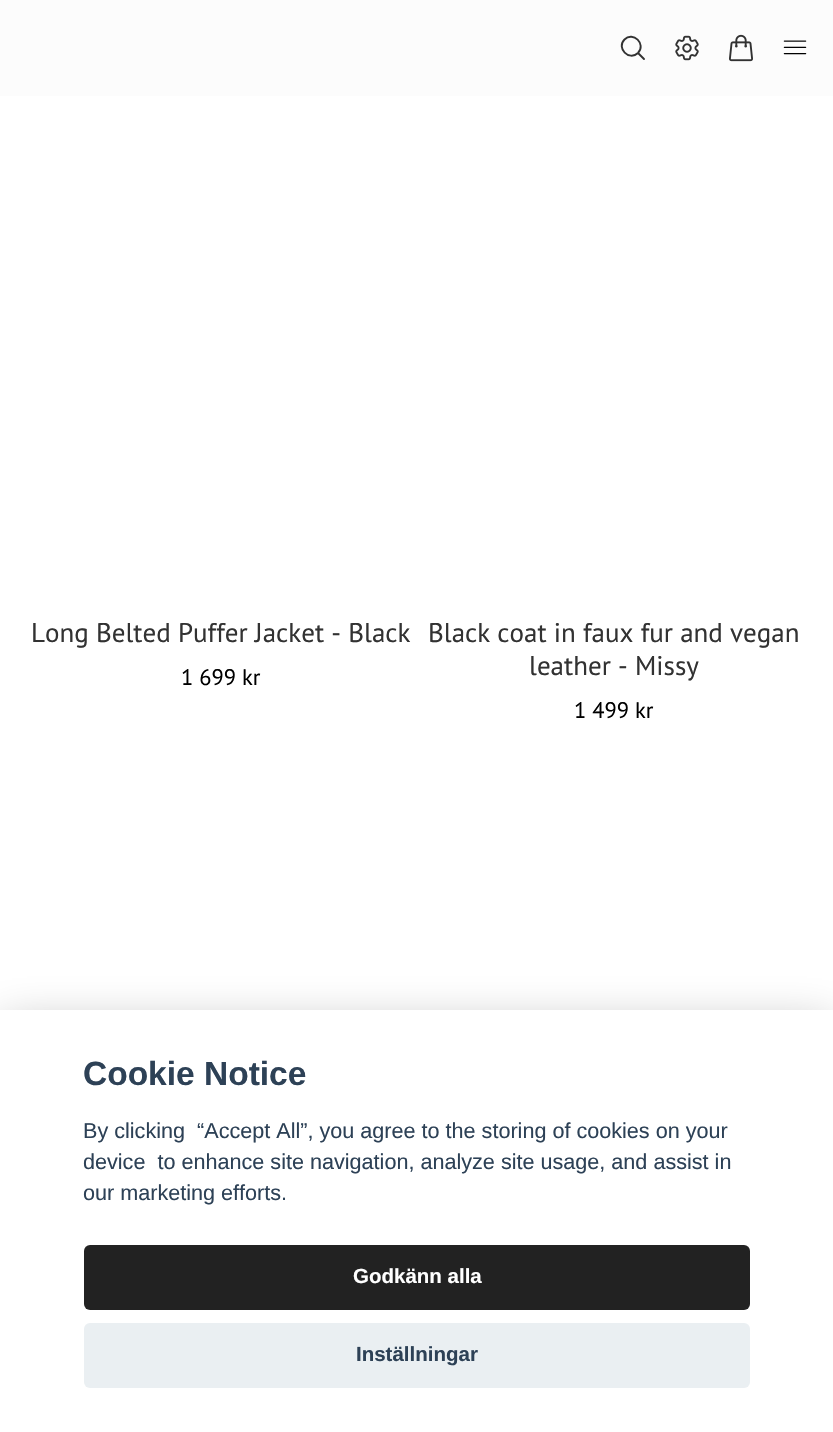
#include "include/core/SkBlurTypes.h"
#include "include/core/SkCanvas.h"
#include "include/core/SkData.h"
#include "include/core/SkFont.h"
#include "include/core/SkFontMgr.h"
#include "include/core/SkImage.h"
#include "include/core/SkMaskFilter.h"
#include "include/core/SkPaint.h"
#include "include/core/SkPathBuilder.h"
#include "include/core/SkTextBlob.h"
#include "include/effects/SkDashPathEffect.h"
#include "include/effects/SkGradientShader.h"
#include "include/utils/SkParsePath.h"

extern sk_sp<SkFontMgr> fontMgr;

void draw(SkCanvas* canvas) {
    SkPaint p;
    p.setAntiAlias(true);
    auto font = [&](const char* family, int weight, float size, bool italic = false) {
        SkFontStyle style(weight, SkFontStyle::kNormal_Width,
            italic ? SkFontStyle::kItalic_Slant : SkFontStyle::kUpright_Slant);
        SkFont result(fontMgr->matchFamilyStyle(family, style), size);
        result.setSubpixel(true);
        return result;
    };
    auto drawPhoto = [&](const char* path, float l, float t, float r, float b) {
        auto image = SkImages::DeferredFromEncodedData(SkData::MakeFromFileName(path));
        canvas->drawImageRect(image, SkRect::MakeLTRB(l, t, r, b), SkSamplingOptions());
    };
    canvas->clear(0xFFFFFFFF);
    p.setColor(0xFFFCFCFC);
    canvas->drawRect(SkRect::MakeLTRB(0, 0, 833, 96), p);
    p.setStyle(SkPaint::kStroke_Style);
    p.setStrokeWidth(1.9f);
    p.setStrokeCap(SkPaint::kRound_Cap);
    p.setStrokeJoin(SkPaint::kRound_Join);
    p.setColor(0xFF323232);
    canvas->drawPath(SkPathBuilder().moveTo(644, 59).lineTo(638, 53).moveTo(638, 53).cubicTo(646.5f, 44, 633, 31, 624.5f, 39.5f).cubicTo(616, 48, 629, 61.5f, 638, 53).close().detach(), p);
    drawPhoto("media/1.png", 675, 35, 699, 61);
    drawPhoto("media/2.png", 729, 34, 753, 62);
    drawPhoto("media/3.png", 783, 40, 807, 55);
    auto font1 = font("PT Sans", 400, 27);
    p.setStyle(SkPaint::kFill_Style);
    canvas->drawString("Long Belted Puffer Jacket - Black", 31, 642, font1, p);
    auto font2 = font("PT Sans", 400, 22.5f);
    p.setColor(0xFF000000);
    canvas->drawString("1 699 kr", 181, 685, font2, p);
    p.setColor(0xFF323232);
    canvas->drawString("Black coat in faux fur and vegan", 428, 642, font1, p);
    canvas->drawString("leather - Missy", 529, 675, font1, p);
    p.setColor(0xFF000000);
    canvas->drawString("1 499 kr", 574, 718, font2, p);
    p.setColor(0x47020203);
    p.setMaskFilter(SkMaskFilter::MakeBlur(kNormal_SkBlurStyle, 22.5f));
    canvas->drawRect(SkRect::MakeLTRB(0, 1025, 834, 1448), p);
    p.setMaskFilter(nullptr);
    p.setColor(0xFFFFFFFF);
    canvas->drawRect(SkRect::MakeLTRB(0, 1010, 833, 1432), p);
    auto font3 = font("Liberation Sans", 700, 33.5f);
    p.setColor(0xFF2D4156);
    canvas->drawString("Cookie Notice", 83, 1085, font3, p);
    auto font4 = font("Liberation Sans", 400, 21.6f);
    {
        const struct { const char* s; float x, y; } items[] = {
            {"By clicking  “Accept All”, you agree to the storing of cookies on your", 83, 1138},
            {"device  to enhance site navigation, analyze site usage, and assist in", 83, 1169},
            {"our marketing efforts.", 83, 1200},
        };
        for (auto [s, x, y] : items) {
            canvas->drawString(s, x, y, font4, p);
        }
    }
    p.setColor(0xFF222222);
    canvas->drawRoundRect(SkRect::MakeLTRB(84, 1245, 750, 1310), 6, 6, p);
    auto font5 = font("Liberation Sans", 700, 20.5f);
    p.setColor(0xFFFFFFFF);
    canvas->drawString("Godkänn alla", 353, 1283, font5, p);
    p.setColor(0xFFEAEFF2);
    canvas->drawRoundRect(SkRect::MakeLTRB(84, 1323, 750, 1388), 6, 6, p);
    p.setColor(0xFF2D4156);
    canvas->drawString("Inställningar", 356, 1361, font5, p);
}
